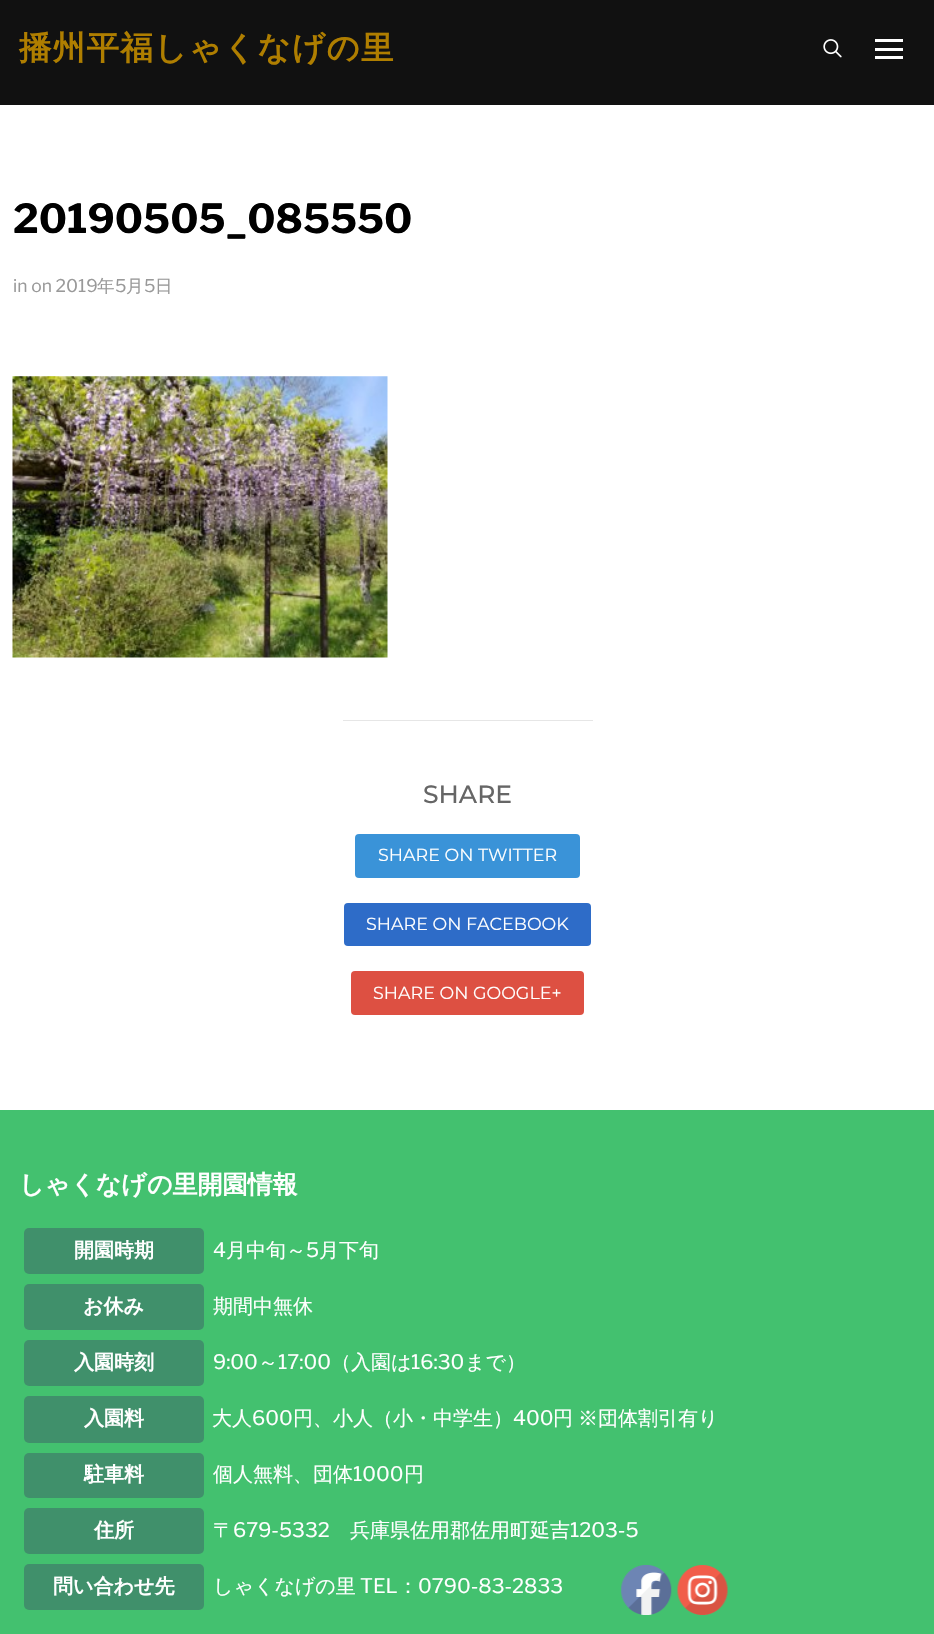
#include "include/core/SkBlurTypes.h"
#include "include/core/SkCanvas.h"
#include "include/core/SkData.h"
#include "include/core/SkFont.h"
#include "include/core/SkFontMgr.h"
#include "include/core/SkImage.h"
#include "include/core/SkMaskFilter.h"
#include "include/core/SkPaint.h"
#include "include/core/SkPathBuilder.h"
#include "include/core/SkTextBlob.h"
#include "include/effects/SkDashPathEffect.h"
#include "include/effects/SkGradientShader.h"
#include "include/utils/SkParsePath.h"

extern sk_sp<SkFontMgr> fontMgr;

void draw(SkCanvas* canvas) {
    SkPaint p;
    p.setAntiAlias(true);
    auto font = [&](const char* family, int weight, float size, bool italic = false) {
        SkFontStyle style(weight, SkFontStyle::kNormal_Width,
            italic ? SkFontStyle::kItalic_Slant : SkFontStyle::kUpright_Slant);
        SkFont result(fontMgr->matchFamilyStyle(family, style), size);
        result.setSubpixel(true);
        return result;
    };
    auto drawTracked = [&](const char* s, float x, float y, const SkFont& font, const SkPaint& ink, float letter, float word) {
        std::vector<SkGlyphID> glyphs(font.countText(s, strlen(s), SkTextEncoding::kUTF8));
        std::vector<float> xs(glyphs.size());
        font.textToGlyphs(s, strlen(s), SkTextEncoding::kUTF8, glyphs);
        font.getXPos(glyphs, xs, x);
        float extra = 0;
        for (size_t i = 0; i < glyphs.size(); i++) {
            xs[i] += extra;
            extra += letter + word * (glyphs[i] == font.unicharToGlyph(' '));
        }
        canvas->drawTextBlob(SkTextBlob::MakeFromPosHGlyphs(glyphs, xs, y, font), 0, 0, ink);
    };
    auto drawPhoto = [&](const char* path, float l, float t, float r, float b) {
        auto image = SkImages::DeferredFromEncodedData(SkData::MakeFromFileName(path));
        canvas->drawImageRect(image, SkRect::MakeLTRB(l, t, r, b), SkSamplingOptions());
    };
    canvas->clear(0xFFFFFFFF);
    p.setColor(0xFF111111);
    canvas->drawRect(SkRect::MakeLTRB(0, 0, 934, 105), p);
    auto font1 = font("WenQuanYi Zen Hei", 700, 32.5f);
    p.setColor(0xFFAF7E00);
    drawTracked("播州平福しゃくなげの里", 19, 59, font1, p, 1.25f, 0);
    drawPhoto("media/1.png", 823, 39, 842, 58);
    {
        const struct { float l, t, r, b; SkColor color; } items[] = {
            {875, 39, 903, 42, 0xFFFFFFFF},
            {875, 48, 903, 51, 0xFFFFFFFF},
            {875, 56, 903, 59, 0xFFFFFFFF},
        };
        for (auto [l, t, r, b, color] : items) {
            p.setColor(color);
            canvas->drawRect(SkRect::MakeLTRB(l, t, r, b), p);
        }
    }
    auto font2 = font("Libre Franklin", 700, 40);
    p.setColor(0xFF000000);
    canvas->drawString("20190505_085550", 13, 233, font2, p);
    auto font3 = font("Libre Franklin", 400, 17.5f);
    p.setColor(0xFF999999);
    canvas->drawString("in on 2019", 13, 292, font3, p);
    auto font4 = font("WenQuanYi Zen Hei", 500, 17.5f);
    canvas->drawString("年", 97, 292, font4, p);
    canvas->drawString("5", 115, 292, font3, p);
    canvas->drawString("月", 126, 292, font4, p);
    canvas->drawString("5", 144, 292, font3, p);
    canvas->drawString("日", 155, 292, font4, p);
    drawPhoto("media/2.png", 12, 376, 388, 658);
    p.setColor(0xFFE6E6E6);
    canvas->drawRect(SkRect::MakeLTRB(343, 720, 593, 721), p);
    auto font5 = font("Montserrat", 500, 25);
    p.setColor(0xFF666666);
    canvas->drawString("SHARE", 423, 803, font5, p);
    p.setColor(0xFF3A93D8);
    canvas->drawRoundRect(SkRect::MakeLTRB(355, 834, 580, 878), 4, 4, p);
    auto font6 = font("Montserrat", 400, 17.5f);
    p.setColor(0xFFFFFFFF);
    canvas->drawString("SHARE ON TWITTER", 378, 861, font6, p);
    p.setColor(0xFF2E6CC8);
    canvas->drawRoundRect(SkRect::MakeLTRB(344, 903, 591, 946), 4, 4, p);
    p.setColor(0xFFFFFFFF);
    canvas->drawString("SHARE ON FACEBOOK", 366, 930, font6, p);
    p.setColor(0xFFDD5042);
    canvas->drawRoundRect(SkRect::MakeLTRB(351, 971, 584, 1015), 4, 4, p);
    p.setColor(0xFFFFFFFF);
    canvas->drawString("SHARE ON GOOGLE+", 373, 999, font6, p);
    p.setColor(0xFF43C16F);
    canvas->drawRect(SkRect::MakeLTRB(0, 1110, 934, 1634), p);
    auto font7 = font("WenQuanYi Zen Hei", 700, 25);
    p.setColor(0xFFFFFFFF);
    canvas->drawString("しゃくなげの里開園情報", 19, 1193, font7, p);
    p.setColor(0xFF40906B);
    canvas->drawRoundRect(SkRect::MakeLTRB(24, 1228, 204, 1274), 5, 5, p);
    auto font8 = font("WenQuanYi Zen Hei", 700, 20);
    p.setColor(0xFFFFFFFF);
    canvas->drawString("開園時期", 74, 1257, font8, p);
    auto font9 = font("Libre Franklin", 400, 20);
    canvas->drawString("4", 213, 1257, font9, p);
    auto font10 = font("WenQuanYi Zen Hei", 500, 20);
    canvas->drawString("月中旬～", 226, 1257, font10, p);
    canvas->drawString("5", 306, 1257, font9, p);
    canvas->drawString("月下旬", 319, 1257, font10, p);
    p.setColor(0xFF40906B);
    canvas->drawRoundRect(SkRect::MakeLTRB(24, 1284, 204, 1330), 5, 5, p);
    p.setColor(0xFFFFFFFF);
    canvas->drawString("お休み", 83, 1313, font8, p);
    canvas->drawString("期間中無休", 213, 1313, font10, p);
    p.setColor(0xFF40906B);
    canvas->drawRoundRect(SkRect::MakeLTRB(24, 1340, 204, 1386), 5, 5, p);
    p.setColor(0xFFFFFFFF);
    canvas->drawString("入園時刻", 74, 1369, font8, p);
    canvas->drawString("9:00", 213, 1369, font9, p);
    canvas->drawString("～", 258, 1369, font10, p);
    canvas->drawString("17:00", 278, 1369, font9, p);
    canvas->drawString("（入園は", 331, 1369, font10, p);
    canvas->drawString("16:30", 411, 1369, font9, p);
    canvas->drawString("まで）", 465, 1369, font10, p);
    p.setColor(0xFF40906B);
    canvas->drawRoundRect(SkRect::MakeLTRB(24, 1396, 204, 1443), 5, 5, p);
    p.setColor(0xFFFFFFFF);
    canvas->drawString("入園料", 84, 1425, font8, p);
    canvas->drawString("大人", 212, 1425, font10, p);
    canvas->drawString("600", 252, 1425, font9, p);
    canvas->drawString("円、小人（小・中学生）", 293, 1425, font10, p);
    canvas->drawString("400", 513, 1425, font9, p);
    drawTracked("円 ※団体割引有り", 553, 1425, font10, p, 0, -1);
    p.setColor(0xFF40906B);
    canvas->drawRoundRect(SkRect::MakeLTRB(24, 1453, 204, 1498), 5, 5, p);
    p.setColor(0xFFFFFFFF);
    canvas->drawString("駐車料", 84, 1481, font8, p);
    canvas->drawString("個人無料、団体", 213, 1481, font10, p);
    canvas->drawString("1000", 353, 1481, font9, p);
    canvas->drawString("円", 404, 1481, font10, p);
    p.setColor(0xFF40906B);
    canvas->drawRoundRect(SkRect::MakeLTRB(24, 1508, 204, 1554), 5, 5, p);
    p.setColor(0xFFFFFFFF);
    canvas->drawString("住所", 94, 1537, font8, p);
    canvas->drawString("〒", 213, 1537, font10, p);
    canvas->drawString("679-5332", 233, 1537, font9, p);
    canvas->drawString("兵庫県佐用郡佐用町延吉", 350, 1537, font10, p);
    canvas->drawString("1203-5", 570, 1537, font9, p);
    p.setColor(0xFF40906B);
    canvas->drawRoundRect(SkRect::MakeLTRB(24, 1564, 204, 1610), 5, 5, p);
    p.setColor(0xFFFFFFFF);
    canvas->drawString("問い合わせ先", 53, 1593, font8, p);
    canvas->drawString("しゃくなげの里", 213, 1593, font10, p);
    canvas->drawString("TEL", 360, 1593, font9, p);
    canvas->drawString("：", 398, 1593, font10, p);
    canvas->drawString("0790-83-2833", 418, 1593, font9, p);
    drawPhoto("media/3.png", 621, 1565, 672, 1615);
    drawPhoto("media/4.png", 677, 1565, 728, 1615);
}
